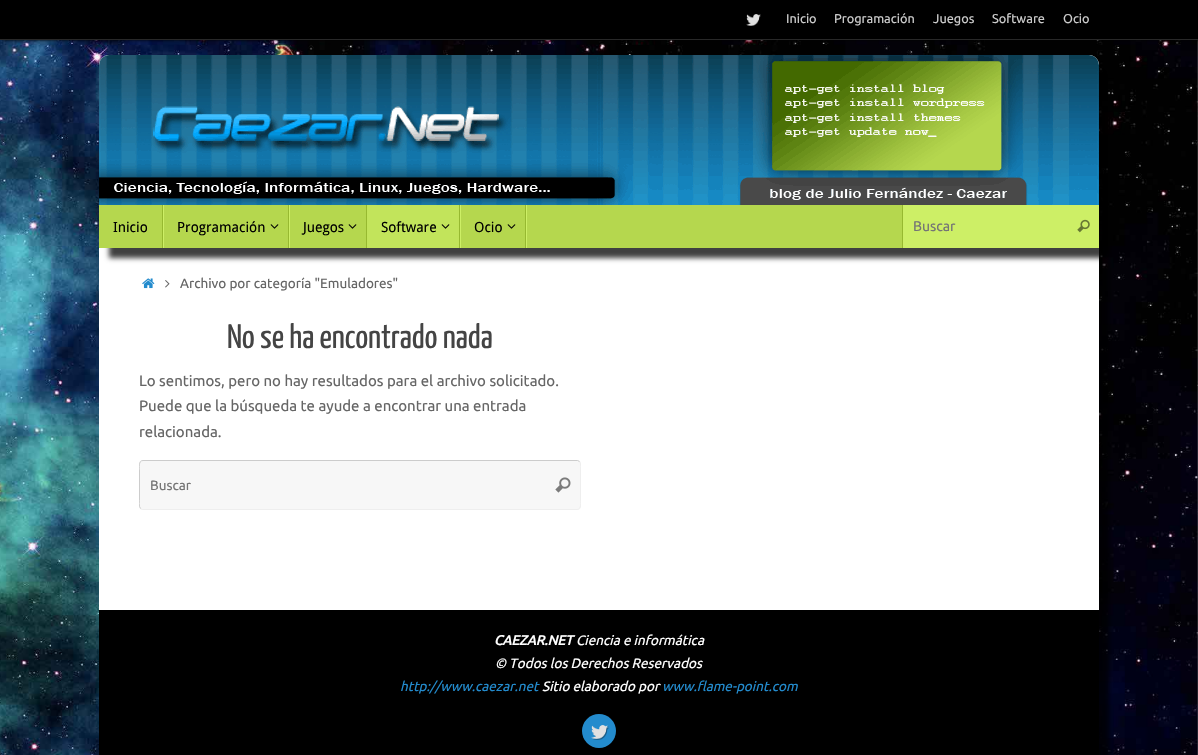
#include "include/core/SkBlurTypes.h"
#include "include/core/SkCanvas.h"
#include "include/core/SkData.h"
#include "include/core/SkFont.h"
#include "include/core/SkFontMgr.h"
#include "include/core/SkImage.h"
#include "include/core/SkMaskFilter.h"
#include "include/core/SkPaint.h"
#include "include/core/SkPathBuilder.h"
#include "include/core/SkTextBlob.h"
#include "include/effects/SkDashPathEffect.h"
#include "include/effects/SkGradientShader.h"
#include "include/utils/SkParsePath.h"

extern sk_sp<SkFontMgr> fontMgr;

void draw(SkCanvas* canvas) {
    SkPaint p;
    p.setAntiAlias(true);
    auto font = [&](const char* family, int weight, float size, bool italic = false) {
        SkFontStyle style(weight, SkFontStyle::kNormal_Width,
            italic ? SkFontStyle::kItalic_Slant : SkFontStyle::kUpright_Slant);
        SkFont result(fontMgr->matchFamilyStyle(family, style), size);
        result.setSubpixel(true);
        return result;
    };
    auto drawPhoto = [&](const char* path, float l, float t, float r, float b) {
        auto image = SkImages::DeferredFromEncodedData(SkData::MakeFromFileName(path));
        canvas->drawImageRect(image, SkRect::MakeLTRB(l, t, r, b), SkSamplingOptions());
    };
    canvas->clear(0xFFFFFFFF);
    drawPhoto("media/1.png", 0, 40, 1198, 755);
    p.setColor(0xFF000000);
    p.setMaskFilter(SkMaskFilter::MakeBlur(kNormal_SkBlurStyle, 1.5f));
    canvas->drawRect(SkRect::MakeLTRB(3, 0, 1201, 40), p);
    p.setMaskFilter(nullptr);
    canvas->drawRect(SkRect::MakeLTRB(0, 0, 1198, 39), p);
    p.setColor(0xFF282828);
    canvas->drawRect(SkRect::MakeLTRB(0, 39, 1198, 40), p);
    drawPhoto("media/2.png", 746, 14, 761, 26);
    auto font1 = font("Ubuntu", 400, 12.75f);
    p.setColor(0xFFCCCCCC);
    {
        const struct { const char* s; float x, y; } items[] = {
            {"Inicio", 786, 23},
            {"Programación", 834, 23},
            {"Juegos", 933, 23},
            {"Software", 992, 23},
            {"Ocio", 1063, 23},
        };
        for (auto [s, x, y] : items) {
            canvas->drawString(s, x, y, font1, p);
        }
    }
    p.setColor(0xBF000000);
    p.setMaskFilter(SkMaskFilter::MakeBlur(kNormal_SkBlurStyle, 2.5f));
    canvas->drawRoundRect(SkRect::MakeLTRB(109, 65, 1109, 258), 10, 10, p);
    p.setMaskFilter(nullptr);
    p.setColor(0xFFFFFFFF);
    canvas->drawPath(SkPathBuilder().moveTo(109, 55).lineTo(1089, 55).cubicTo(1094.5f, 55, 1099, 59.5f, 1099, 65).lineTo(1099, 248).lineTo(99, 248).lineTo(99, 65).cubicTo(99, 59.5f, 103.5f, 55, 109, 55).close().detach(), p);
    drawPhoto("media/3.png", 99, 55, 1099, 205);
    p.setColor(0xBF000000);
    p.setMaskFilter(SkMaskFilter::MakeBlur(kNormal_SkBlurStyle, 2.5f));
    canvas->drawRoundRect(SkRect::MakeLTRB(109, 258, 1109, 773), 10, 10, p);
    p.setMaskFilter(nullptr);
    p.setColor(0xFFFFFFFF);
    canvas->drawRect(SkRect::MakeLTRB(99, 248, 1099, 610), p);
    p.setColor(0xBF000000);
    p.setMaskFilter(SkMaskFilter::MakeBlur(kNormal_SkBlurStyle, 2.5f));
    canvas->drawRect(SkRect::MakeLTRB(109, 215, 1109, 258), p);
    p.setMaskFilter(nullptr);
    {
        const struct { float l, t, r, b; SkColor color; } items[] = {
            {99, 205, 902, 248, 0xFFB5D74E},
            {163, 205, 164, 248, 0xFFCDEF66},
            {162, 205, 163, 248, 0xFF97B930},
        };
        for (auto [l, t, r, b, color] : items) {
            p.setColor(color);
            canvas->drawRect(SkRect::MakeLTRB(l, t, r, b), p);
        }
    }
    auto font2 = font("Droid Sans", 400, 14);
    p.setColor(0xFF000000);
    canvas->drawString("Inicio", 113, 232, font2, p);
    p.setColor(0xFFCDEF66);
    canvas->drawRect(SkRect::MakeLTRB(289, 205, 290, 248), p);
    p.setColor(0xFF97B930);
    canvas->drawRect(SkRect::MakeLTRB(288, 205, 289, 248), p);
    p.setColor(0xFF000000);
    canvas->drawString("Programación", 177, 232, font2, p);
    drawPhoto("media/4.png", 270, 224, 279, 229);
    p.setColor(0xFF97B930);
    canvas->drawRect(SkRect::MakeLTRB(366, 205, 367, 248), p);
    p.setColor(0xFF000000);
    canvas->drawString("Juegos", 303, 232, font2, p);
    drawPhoto("media/4.png", 348, 224, 357, 229);
    {
        const struct { float l, t, r, b; SkColor color; } items[] = {
            {367, 205, 459, 248, 0xFFC2E45B},
            {460, 205, 461, 248, 0xFFCDEF66},
            {459, 205, 460, 248, 0xFF97B930},
        };
        for (auto [l, t, r, b, color] : items) {
            p.setColor(color);
            canvas->drawRect(SkRect::MakeLTRB(l, t, r, b), p);
        }
    }
    p.setColor(0xFF000000);
    canvas->drawString("Software", 381, 232, font2, p);
    drawPhoto("media/5.png", 441, 224, 450, 229);
    p.setColor(0xFFCDEF66);
    canvas->drawRect(SkRect::MakeLTRB(526, 205, 527, 248), p);
    p.setColor(0xFF97B930);
    canvas->drawRect(SkRect::MakeLTRB(525, 205, 526, 248), p);
    p.setColor(0xFF000000);
    canvas->drawString("Ocio", 474, 232, font2, p);
    drawPhoto("media/4.png", 507, 224, 516, 229);
    p.setColor(0xFFCDEF66);
    canvas->drawRect(SkRect::MakeLTRB(903, 205, 1099, 248), p);
    p.setColor(0xFF97B930);
    canvas->drawRect(SkRect::MakeLTRB(902, 205, 903, 248), p);
    auto font3 = font("Ubuntu", 400, 14);
    p.setColor(0xFF757575);
    canvas->drawString("Buscar", 913, 231, font3, p);
    drawPhoto("media/6.png", 1077, 219, 1090, 233);
    drawPhoto("media/7.png", 142, 278, 155, 289);
    drawPhoto("media/8.png", 165, 280, 170, 288);
    auto font4 = font("Ubuntu", 400, 13.5f);
    p.setColor(0xFF666666);
    canvas->drawString("Archivo por categoría \"Emuladores\"", 180, 288, font4, p);
    auto font5 = font("Yanone Kaffeesatz", 400, 34);
    p.setColor(0xFF444444);
    canvas->drawString("No se ha encontrado nada", 227, 348, font5, p);
    auto font6 = font("Ubuntu", 400, 15);
    p.setColor(0xFF666666);
    {
        const struct { const char* s; float x, y; } items[] = {
            {"Lo sentimos, pero no hay resultados para el archivo solicitado.", 139, 386},
            {"Puede que la búsqueda te ayude a encontrar una entrada", 139, 411},
            {"relacionada.", 139, 437},
        };
        for (auto [s, x, y] : items) {
            canvas->drawString(s, x, y, font6, p);
        }
    }
    p.setColor(0xFFF7F7F7);
    canvas->drawRoundRect(SkRect::MakeLTRB(139, 460, 581, 510), 4, 4, p);
    canvas->save();
    canvas->clipRect(SkRect::MakeLTRB(139, 460, 581, 510));
    p.setStyle(SkPaint::kStroke_Style);
    p.setStrokeWidth(1);
    p.setColor(0xFFEEEEEE);
    canvas->drawPath(SkPathBuilder().moveTo(579.5f, 461.5f).cubicTo(581.5f, 463.5f, 580.5f, 469.5f, 580.5f, 471).lineTo(580.5f, 499).cubicTo(580.5f, 501.5f, 582, 509.5f, 577, 509.5f).lineTo(142.5f, 509.5f).lineTo(140.5f, 508.5f).detach(), p);
    p.setColor(0xFFCCCCCC);
    canvas->drawPath(SkPathBuilder().moveTo(140.5f, 508.5f).cubicTo(138.5f, 506.5f, 139.5f, 500.5f, 139.5f, 499).lineTo(139.5f, 471).cubicTo(139.5f, 468.5f, 138, 460.5f, 143, 460.5f).lineTo(577.5f, 460.5f).lineTo(579.5f, 461.5f).detach(), p);
    canvas->restore();
    p.setStyle(SkPaint::kFill_Style);
    p.setColor(0xFF757575);
    canvas->drawString("Buscar", 150, 490, font4, p);
    drawPhoto("media/9.png", 555, 477, 571, 493);
    p.setColor(0xFF000000);
    canvas->drawRect(SkRect::MakeLTRB(99, 610, 1099, 755), p);
    auto font7 = font("Ubuntu", 700, 13.5f, true);
    p.setColor(0xFFFFFFFF);
    canvas->drawString("CAEZAR.NET", 494, 645, font7, p);
    auto font8 = font("Ubuntu", 400, 13.5f, true);
    canvas->drawString("Ciencia e informática", 576, 645, font8, p);
    canvas->drawString("© Todos los Derechos Reservados", 495, 668, font8, p);
    p.setColor(0xFF238BCD);
    canvas->drawString("http://www.caezar.net", 400, 691, font8, p);
    p.setColor(0xFFFFFFFF);
    canvas->drawString("Sitio elaborado por", 542, 691, font8, p);
    p.setColor(0xFF238BCD);
    canvas->drawString("www.flame-point.com", 662, 691, font8, p);
    canvas->drawCircle(599, 731, 17, p);
    drawPhoto("media/10.png", 591, 725, 609, 740);
}
